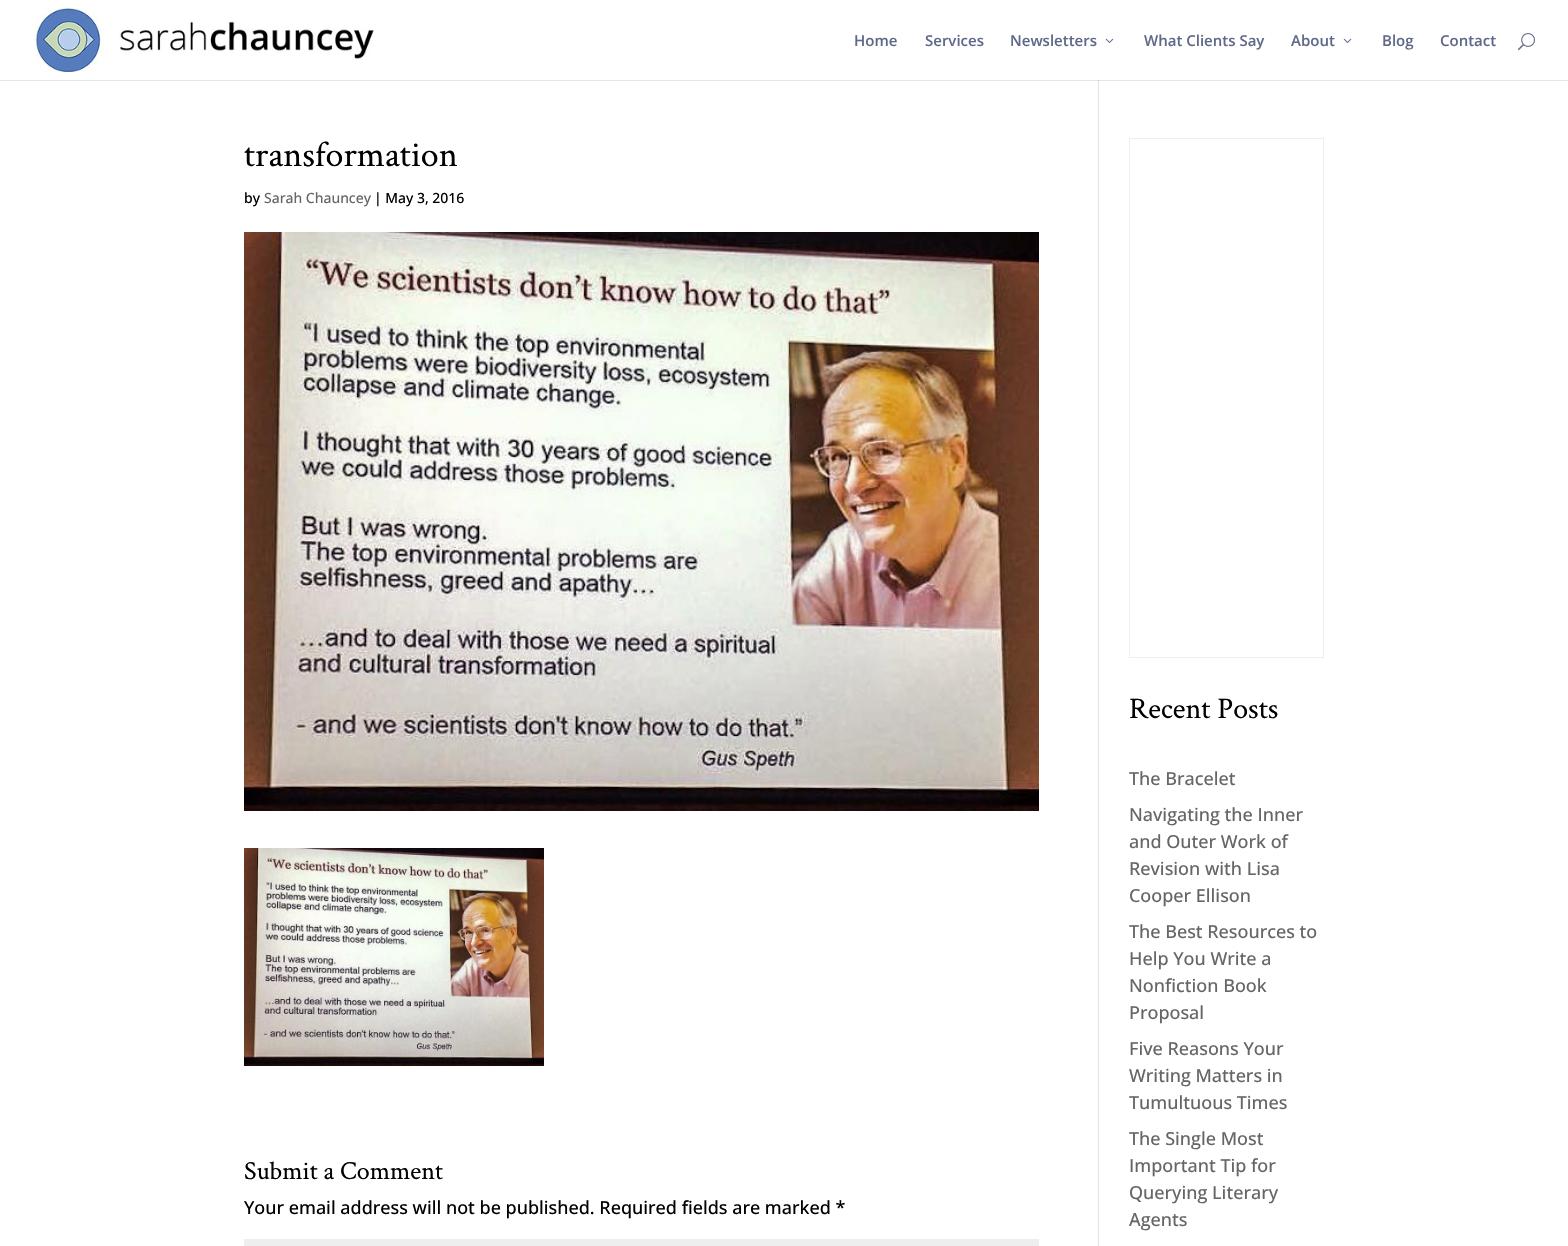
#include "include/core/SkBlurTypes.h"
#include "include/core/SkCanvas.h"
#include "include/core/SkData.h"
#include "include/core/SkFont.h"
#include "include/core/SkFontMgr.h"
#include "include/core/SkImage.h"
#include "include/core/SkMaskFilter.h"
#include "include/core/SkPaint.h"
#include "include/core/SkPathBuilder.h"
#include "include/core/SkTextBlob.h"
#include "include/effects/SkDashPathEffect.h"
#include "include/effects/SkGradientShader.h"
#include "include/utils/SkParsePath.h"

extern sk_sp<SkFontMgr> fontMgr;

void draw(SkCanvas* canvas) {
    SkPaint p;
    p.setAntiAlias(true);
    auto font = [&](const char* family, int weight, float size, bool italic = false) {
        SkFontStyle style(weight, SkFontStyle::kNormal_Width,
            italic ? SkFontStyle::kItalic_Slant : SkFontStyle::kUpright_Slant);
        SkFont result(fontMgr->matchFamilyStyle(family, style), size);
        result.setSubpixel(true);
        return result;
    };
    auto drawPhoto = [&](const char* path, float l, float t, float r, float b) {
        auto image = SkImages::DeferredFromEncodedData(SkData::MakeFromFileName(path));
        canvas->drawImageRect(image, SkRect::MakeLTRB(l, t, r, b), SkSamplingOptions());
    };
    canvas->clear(0xFFFFFFFF);
    drawPhoto("media/1.png", 35, 8, 374, 72);
    auto font1 = font("Open Sans", 600, 15);
    p.setColor(0xFF606989);
    {
        const struct { const char* s; float x, y; } items[] = {
            {"Home", 854, 46},
            {"Services", 925, 46},
            {"Newsletters", 1010, 46},
        };
        for (auto [s, x, y] : items) {
            canvas->drawString(s, x, y, font1, p);
        }
    }
    drawPhoto("media/2.png", 1105, 38, 1114, 43);
    canvas->drawString("What Clients Say", 1144, 46, font1, p);
    canvas->drawString("About", 1291, 46, font1, p);
    drawPhoto("media/2.png", 1343, 38, 1352, 43);
    canvas->drawString("Blog", 1382, 46, font1, p);
    canvas->drawString("Contact", 1440, 46, font1, p);
    drawPhoto("media/3.png", 1518, 33, 1535, 51);
    {
        const struct { float l, t, r, b; SkColor color; } items[] = {
            {0, 80, 1568, 81, 0xFFE6E6E6},
            {1098, 80, 1099, 1246, 0xFFE2E2E2},
            {1098, 80, 1099, 81, 0xFFCBCBCB},
        };
        for (auto [l, t, r, b, color] : items) {
            p.setColor(color);
            canvas->drawRect(SkRect::MakeLTRB(l, t, r, b), p);
        }
    }
    auto font2 = font("Crimson Text", 400, 36);
    p.setColor(0xFF000000);
    canvas->drawString("transformation", 244, 166, font2, p);
    auto font3 = font("Open Sans", 500, 14);
    canvas->drawString("by", 244, 203, font3, p);
    p.setColor(0xFF666666);
    canvas->drawString("Sarah Chauncey", 264, 203, font3, p);
    p.setColor(0xFF000000);
    canvas->drawString("| May 3, 2016", 374, 203, font3, p);
    drawPhoto("media/4.png", 244, 232, 1039, 811);
    drawPhoto("media/5.png", 244, 848, 544, 1066);
    auto font4 = font("Crimson Text", 400, 26);
    canvas->drawString("Submit a Comment", 244, 1179, font4, p);
    auto font5 = font("Open Sans", 500, 18);
    canvas->drawString("Your email address will not be published. Required fields are marked *", 244, 1214, font5, p);
    p.setColor(0xFFEEEEEE);
    canvas->drawRect(SkRect::MakeLTRB(244, 1239, 1039, 1246), p);
    p.setStyle(SkPaint::kStroke_Style);
    p.setStrokeWidth(1);
    canvas->drawRect(SkRect::MakeLTRB(1129.5f, 138.5f, 1323.5f, 657.5f), p);
    auto font6 = font("Crimson Text", 400, 30);
    p.setStyle(SkPaint::kFill_Style);
    p.setColor(0xFF000000);
    canvas->drawString("Recent Posts", 1129, 718, font6, p);
    p.setColor(0xFF666666);
    {
        const struct { const char* s; float x, y; } items[] = {
            {"The Bracelet", 1129, 785},
            {"Navigating the Inner", 1129, 821},
            {"and Outer Work of", 1129, 848},
            {"Revision with Lisa", 1129, 875},
            {"Cooper Ellison", 1129, 902},
            {"The Best Resources to", 1129, 938},
            {"Help You Write a", 1129, 965},
            {"Nonfiction Book", 1129, 992},
            {"Proposal", 1129, 1019},
            {"Five Reasons Your", 1129, 1055},
            {"Writing Matters in", 1129, 1082},
            {"Tumultuous Times", 1129, 1109},
            {"The Single Most", 1129, 1145},
            {"Important Tip for", 1129, 1172},
            {"Querying Literary", 1129, 1199},
            {"Agents", 1129, 1226},
        };
        for (auto [s, x, y] : items) {
            canvas->drawString(s, x, y, font5, p);
        }
    }
}
